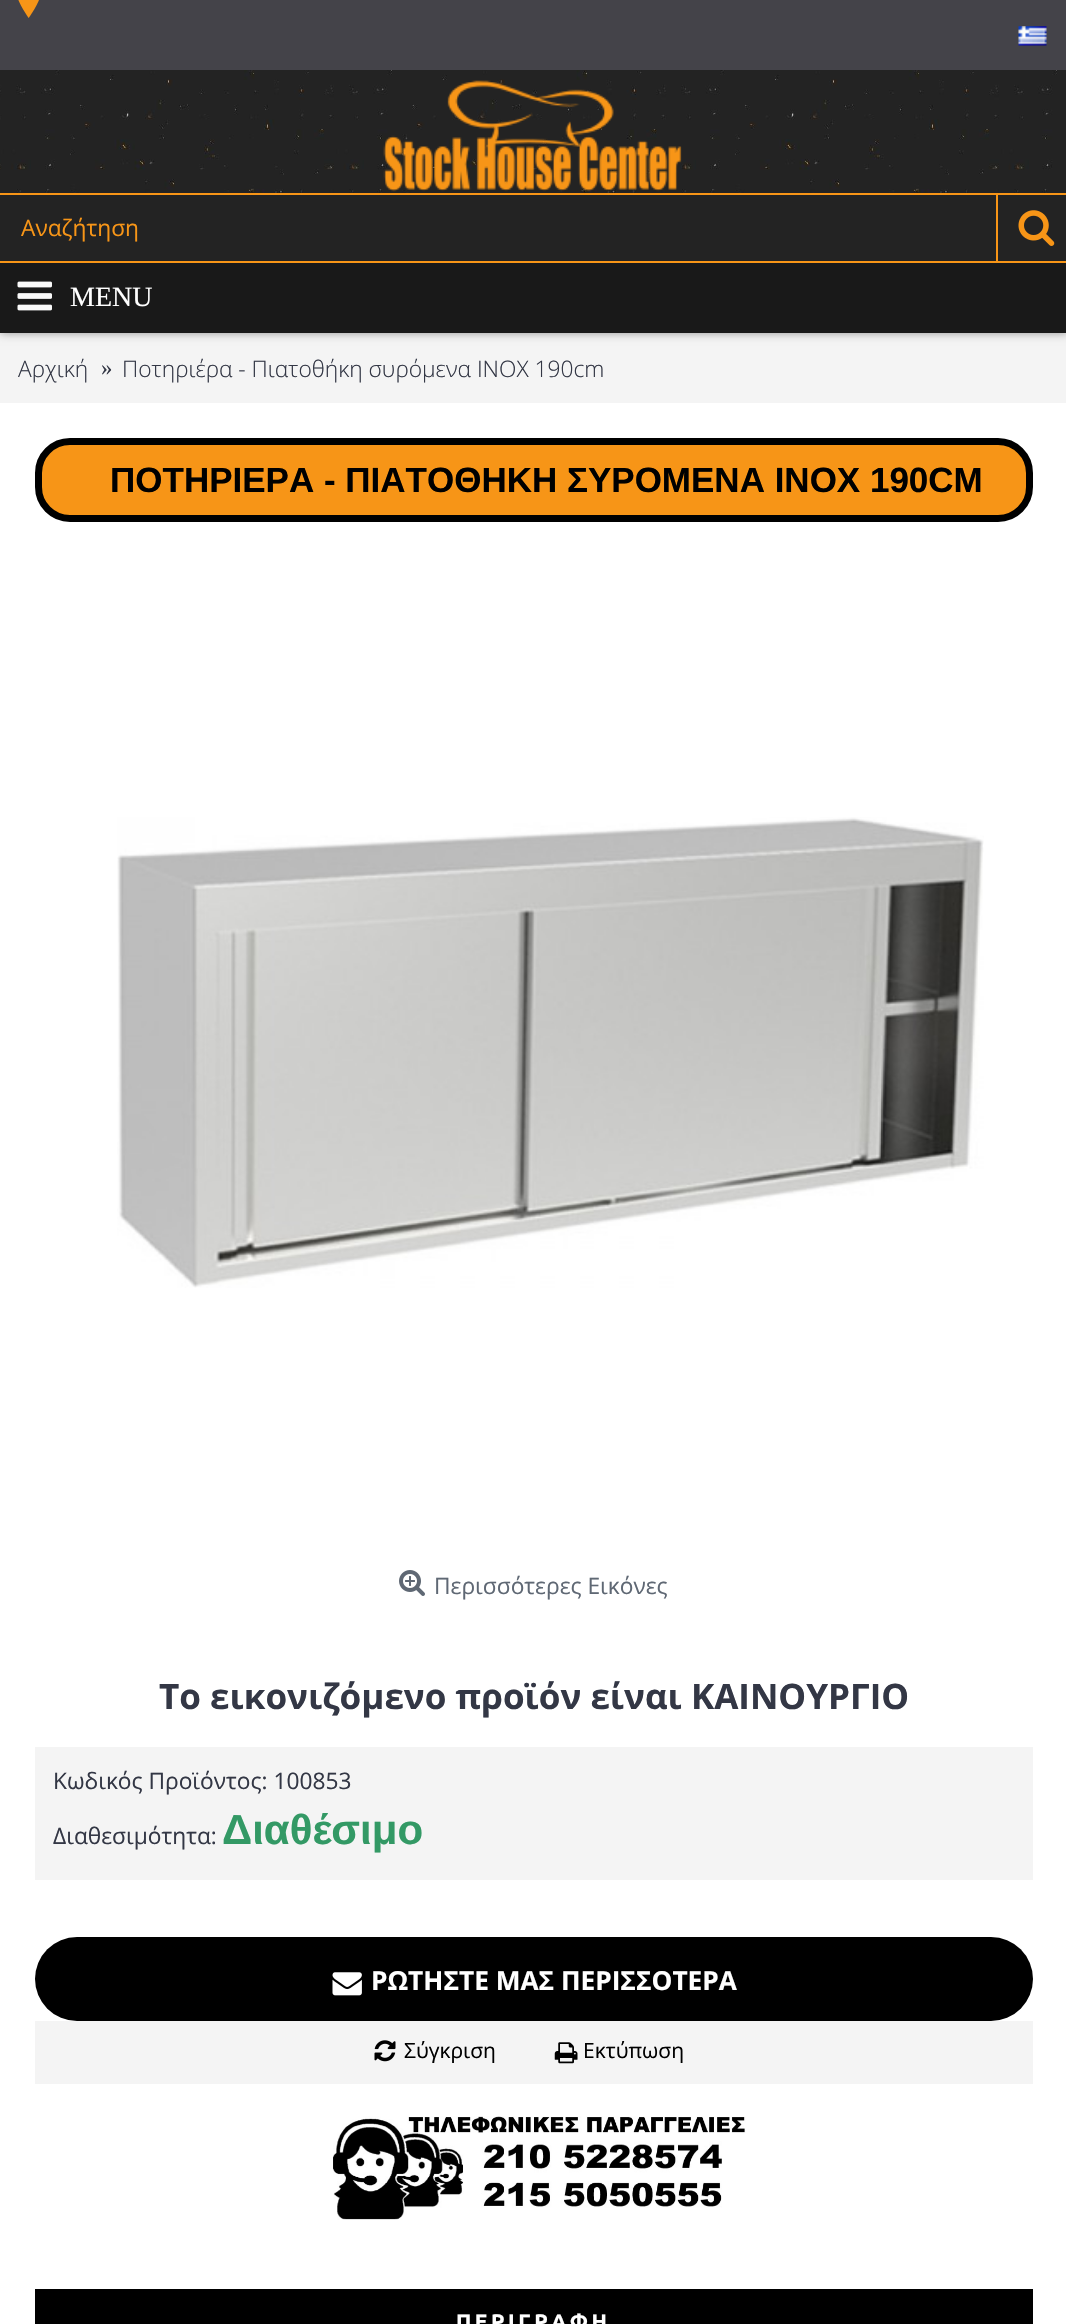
#include "include/core/SkBlurTypes.h"
#include "include/core/SkCanvas.h"
#include "include/core/SkData.h"
#include "include/core/SkFont.h"
#include "include/core/SkFontMgr.h"
#include "include/core/SkImage.h"
#include "include/core/SkMaskFilter.h"
#include "include/core/SkPaint.h"
#include "include/core/SkPathBuilder.h"
#include "include/core/SkTextBlob.h"
#include "include/effects/SkDashPathEffect.h"
#include "include/effects/SkGradientShader.h"
#include "include/utils/SkParsePath.h"

extern sk_sp<SkFontMgr> fontMgr;

void draw(SkCanvas* canvas) {
    SkPaint p;
    p.setAntiAlias(true);
    auto font = [&](const char* family, int weight, float size, bool italic = false) {
        SkFontStyle style(weight, SkFontStyle::kNormal_Width,
            italic ? SkFontStyle::kItalic_Slant : SkFontStyle::kUpright_Slant);
        SkFont result(fontMgr->matchFamilyStyle(family, style), size);
        result.setSubpixel(true);
        return result;
    };
    auto drawTracked = [&](const char* s, float x, float y, const SkFont& font, const SkPaint& ink, float letter, float word) {
        std::vector<SkGlyphID> glyphs(font.countText(s, strlen(s), SkTextEncoding::kUTF8));
        std::vector<float> xs(glyphs.size());
        font.textToGlyphs(s, strlen(s), SkTextEncoding::kUTF8, glyphs);
        font.getXPos(glyphs, xs, x);
        float extra = 0;
        for (size_t i = 0; i < glyphs.size(); i++) {
            xs[i] += extra;
            extra += letter + word * (glyphs[i] == font.unicharToGlyph(' '));
        }
        canvas->drawTextBlob(SkTextBlob::MakeFromPosHGlyphs(glyphs, xs, y, font), 0, 0, ink);
    };
    auto drawPhoto = [&](const char* path, float l, float t, float r, float b) {
        auto image = SkImages::DeferredFromEncodedData(SkData::MakeFromFileName(path));
        canvas->drawImageRect(image, SkRect::MakeLTRB(l, t, r, b), SkSamplingOptions());
    };
    canvas->clear(0xFFFFFFFF);
    p.setColor(0xFFF4F4F4);
    canvas->drawRect(SkRect::MakeLTRB(0, 333, 1066, 403), p);
    p.setColor(0x66000000);
    p.setMaskFilter(SkMaskFilter::MakeBlur(kNormal_SkBlurStyle, 4.5f));
    canvas->drawRect(SkRect::MakeLTRB(0, 0, 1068, 333), p);
    p.setMaskFilter(nullptr);
    drawPhoto("media/1.png", 0, 70, 1066, 193);
    p.setColor(0xFF444349);
    canvas->drawRect(SkRect::MakeLTRB(0, 0, 1066, 70), p);
    drawPhoto("media/2.png", 18, 0, 39, 18);
    drawPhoto("media/3.png", 1018, 26, 1047, 46);
    drawPhoto("media/4.png", 383, 80, 682, 192);
    {
        const struct { float l, t, r, b; SkColor color; } items[] = {
            {0, 195, 1066, 261, 0xFF232323},
            {0, 193, 1066, 195, 0xFFF79517},
            {0, 261, 1066, 263, 0xFFF79517},
        };
        for (auto [l, t, r, b, color] : items) {
            p.setColor(color);
            canvas->drawRect(SkRect::MakeLTRB(l, t, r, b), p);
        }
    }
    auto font1 = font("Open Sans", 400, 22.75f);
    canvas->drawString("Αναζήτηση", 21, 236, font1, p);
    canvas->drawRect(SkRect::MakeLTRB(996, 193, 998, 263), p);
    drawPhoto("media/5.png", 1018, 210, 1055, 246);
    p.setColor(0xFF191919);
    canvas->drawRect(SkRect::MakeLTRB(0, 263, 1066, 333), p);
    drawPhoto("media/6.png", 17, 281, 52, 311);
    auto font2 = font("Liberation Serif", 400, 28);
    p.setColor(0xFFFFFFFF);
    canvas->drawString("MENU", 70, 306, font2, p);
    auto font3 = font("Open Sans", 300, 22.75f);
    p.setColor(0xFF333745);
    canvas->drawString("Αρχική", 18, 377, font3, p);
    auto font4 = font("Liberation Serif", 400, 22.75f);
    canvas->drawString("»", 101, 375, font4, p);
    canvas->drawString("Ποτηριέρα - Πιατοθήκη συρόμενα INOX 190cm", 122, 377, font3, p);
    p.setColor(0xFFF79517);
    canvas->drawRoundRect(SkRect::MakeLTRB(38.5f, 441.5f, 1029.5f, 518.5f), 31.5f, 31.5f, p);
    p.setStyle(SkPaint::kStroke_Style);
    p.setStrokeWidth(7);
    p.setColor(0xFF000000);
    canvas->drawRoundRect(SkRect::MakeLTRB(38.5f, 441.5f, 1029.5f, 518.5f), 31.5f, 31.5f, p);
    auto font5 = font("Liberation Sans", 700, 35);
    p.setStyle(SkPaint::kFill_Style);
    canvas->drawString("ΠΟΤΗΡΙΕΡΑ - ΠΙΑΤΟΘΗΚΗ ΣΥΡΟΜΕΝΑ INOX 190CM", 110, 492, font5, p);
    drawPhoto("media/7.png", 117, 817, 984, 1288);
    drawPhoto("media/8.png", 399, 1570, 425, 1596);
    p.setColor(0xFF5F6874);
    canvas->drawString("Περισσότερες Εικόνες", 434, 1594, font1, p);
    auto font6 = font("Open Sans", 700, 35);
    p.setColor(0xFF333745);
    canvas->drawString("Το εικονιζόμενο προϊόν είναι ΚΑΙΝΟΥΡΓΙΟ", 159, 1709, font6, p);
    p.setColor(0xFFF4F4F4);
    canvas->drawRect(SkRect::MakeLTRB(35, 1747, 1033, 1880), p);
    p.setColor(0xFF333745);
    canvas->drawString("Κωδικός Προϊόντος: 100853", 53, 1789, font1, p);
    canvas->drawString("Διαθεσιμότητα:", 53, 1844, font1, p);
    auto font7 = font("Liberation Sans", 700, 42);
    p.setColor(0xFF339965);
    canvas->drawString("Διαθέσιμο", 222, 1844, font7, p);
    p.setColor(0xFF000000);
    canvas->drawRoundRect(SkRect::MakeLTRB(35, 1937, 1033, 2021), 42, 42, p);
    drawPhoto("media/9.png", 332, 1972, 362, 1996);
    auto font8 = font("Open Sans", 700, 26.25f);
    p.setColor(0xFFFFFFFF);
    canvas->drawString("ΡΩΤΗΣΤΕ ΜΑΣ ΠΕΡΙΣΣΟΤΕΡΑ", 371, 1990, font8, p);
    p.setColor(0xFFF4F4F4);
    canvas->drawRect(SkRect::MakeLTRB(35, 2021, 1033, 2084), p);
    drawPhoto("media/10.png", 374, 2040, 396, 2062);
    auto font9 = font("Open Sans", 400, 21);
    p.setColor(0xFF000000);
    canvas->drawString("Σύγκριση", 404, 2058, font9, p);
    drawPhoto("media/11.png", 554, 2042, 578, 2064);
    canvas->drawString("Εκτύπωση", 583, 2058, font9, p);
    drawPhoto("media/12.png", 333, 2116, 746, 2220);
    canvas->drawRect(SkRect::MakeLTRB(35, 2289, 1033, 2324), p);
    auto font10 = font("Ubuntu", 700, 21);
    p.setColor(0xFFFFFFFF);
    drawTracked("ΠΕΡΙΓΡΑΦΗ", 456, 2329, font10, p, 3.5f, 0);
}
